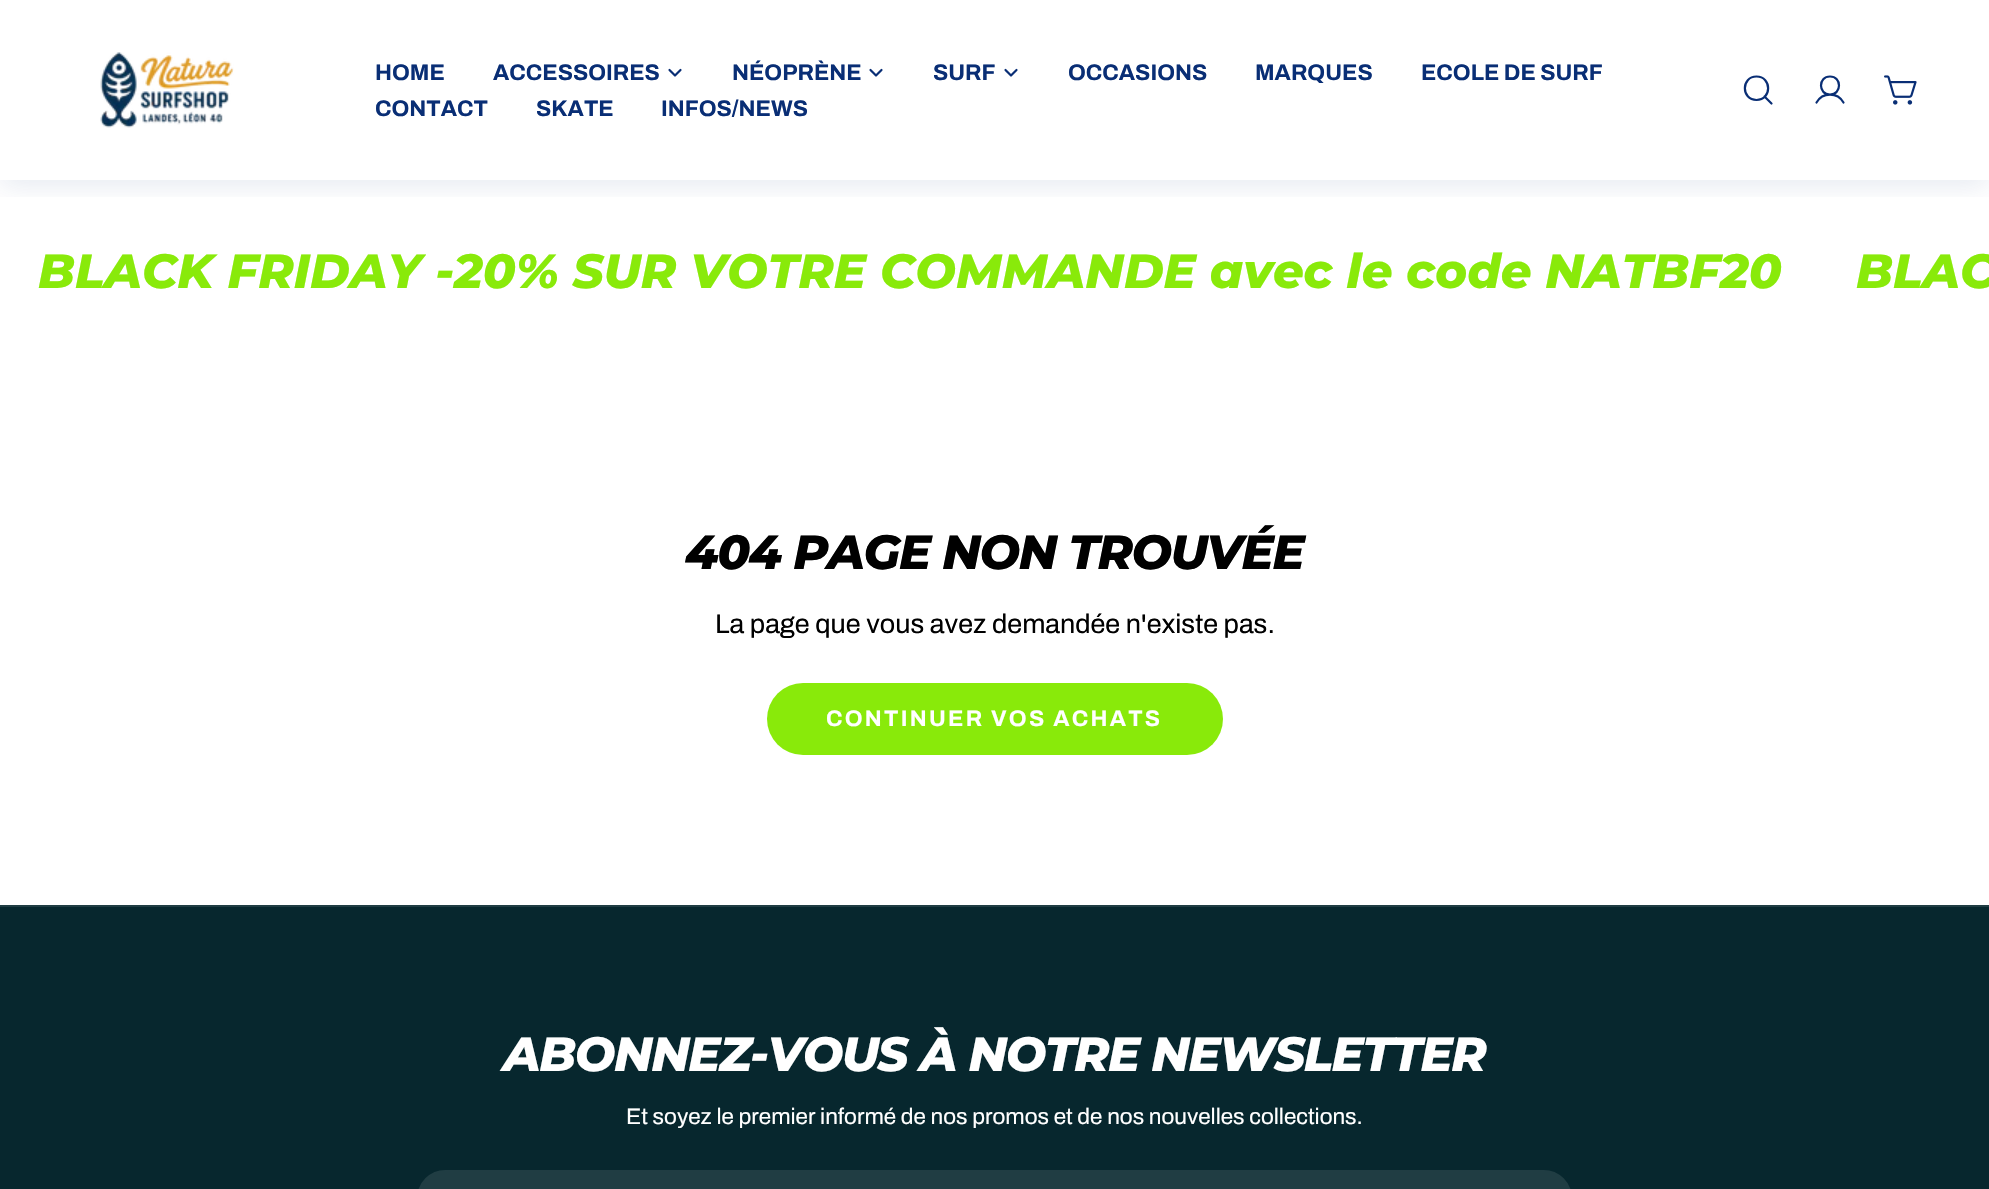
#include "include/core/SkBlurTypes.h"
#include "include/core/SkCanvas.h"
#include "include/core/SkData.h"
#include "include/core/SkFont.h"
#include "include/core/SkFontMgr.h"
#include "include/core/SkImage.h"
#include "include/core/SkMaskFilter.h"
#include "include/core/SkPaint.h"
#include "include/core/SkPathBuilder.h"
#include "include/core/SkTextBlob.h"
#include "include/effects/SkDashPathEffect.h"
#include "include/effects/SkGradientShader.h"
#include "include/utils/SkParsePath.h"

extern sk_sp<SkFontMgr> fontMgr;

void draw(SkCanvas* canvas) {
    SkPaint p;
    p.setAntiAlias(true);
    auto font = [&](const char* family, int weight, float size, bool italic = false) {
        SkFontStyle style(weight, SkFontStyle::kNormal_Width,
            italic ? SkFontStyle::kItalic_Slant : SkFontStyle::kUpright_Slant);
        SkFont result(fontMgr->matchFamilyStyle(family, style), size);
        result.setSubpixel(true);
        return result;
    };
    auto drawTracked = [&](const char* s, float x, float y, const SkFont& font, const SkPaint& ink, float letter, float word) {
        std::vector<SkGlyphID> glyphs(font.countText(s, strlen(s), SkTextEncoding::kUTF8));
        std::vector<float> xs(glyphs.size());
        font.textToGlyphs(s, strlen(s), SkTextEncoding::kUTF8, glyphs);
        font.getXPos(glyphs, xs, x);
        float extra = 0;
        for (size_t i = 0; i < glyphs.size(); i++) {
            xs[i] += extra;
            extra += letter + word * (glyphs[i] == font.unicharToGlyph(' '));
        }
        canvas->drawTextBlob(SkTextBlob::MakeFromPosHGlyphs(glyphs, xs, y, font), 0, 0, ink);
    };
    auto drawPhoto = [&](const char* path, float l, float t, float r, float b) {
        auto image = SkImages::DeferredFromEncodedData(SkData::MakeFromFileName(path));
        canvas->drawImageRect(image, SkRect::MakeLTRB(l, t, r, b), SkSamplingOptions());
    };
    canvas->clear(0xFFFFFFFF);
    canvas->save();
    canvas->clipRect(SkRect::MakeLTRB(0, 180, 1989, 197));
    p.setColor(0x1A092E75);
    p.setMaskFilter(SkMaskFilter::MakeBlur(kNormal_SkBlurStyle, 13.5f));
    canvas->drawRect(SkRect::MakeLTRB(0, 6, 1989, 186), p);
    p.setMaskFilter(nullptr);
    canvas->restore();
    drawPhoto("media/1.png", 100, 52, 234, 128);
    auto font1 = font("Archivo", 700, 22.5f);
    p.setColor(0xFF092E75);
    canvas->drawString("HOME", 375, 80, font1, p);
    canvas->drawString("ACCESSOIRES", 493, 80, font1, p);
    p.setStyle(SkPaint::kStroke_Style);
    p.setStrokeWidth(2.2f);
    p.setStrokeCap(SkPaint::kRound_Cap);
    p.setStrokeJoin(SkPaint::kRound_Join);
    canvas->drawPath(SkPathBuilder().moveTo(680.5f, 70).lineTo(675, 75.5f).lineTo(669.5f, 70).detach(), p);
    p.setStyle(SkPaint::kFill_Style);
    canvas->drawString("NÉOPRÈNE", 732, 80, font1, p);
    p.setStyle(SkPaint::kStroke_Style);
    canvas->drawPath(SkPathBuilder().moveTo(881.5f, 70).lineTo(876, 75.5f).lineTo(870.5f, 70).detach(), p);
    p.setStyle(SkPaint::kFill_Style);
    canvas->drawString("SURF", 933, 80, font1, p);
    p.setStyle(SkPaint::kStroke_Style);
    canvas->drawPath(SkPathBuilder().moveTo(1016.5f, 70).lineTo(1011, 75.5f).lineTo(1005.5f, 70).detach(), p);
    p.setStyle(SkPaint::kFill_Style);
    {
        const struct { const char* s; float x, y; } items[] = {
            {"OCCASIONS", 1068, 80},
            {"MARQUES", 1255, 80},
            {"ECOLE DE SURF", 1421, 80},
            {"CONTACT", 375, 116},
            {"SKATE", 536, 116},
            {"INFOS/NEWS", 661, 116},
        };
        for (auto [s, x, y] : items) {
            canvas->drawString(s, x, y, font1, p);
        }
    }
    p.setStyle(SkPaint::kStroke_Style);
    canvas->drawPath(SkPathBuilder().moveTo(1756.5f, 100).cubicTo(1772, 100, 1772, 76.5f, 1756.5f, 76.5f).cubicTo(1741, 76.5f, 1741, 100, 1756.5f, 100).close().moveTo(1764.5f, 96.5f).lineTo(1771.5f, 103.5f).detach(), p);
    canvas->drawPath(SkPathBuilder().moveTo(1830, 94.5f).cubicTo(1842, 94.5f, 1842, 76.5f, 1830, 76.5f).cubicTo(1818, 76.5f, 1818, 94.5f, 1830, 94.5f).close().moveTo(1816.5f, 102.5f).cubicTo(1822.5f, 92, 1837.5f, 92, 1843.5f, 102.5f).detach(), p);
    drawPhoto("media/2.png", 1884, 75, 1917, 105);
    auto font2 = font("Montserrat", 800, 48, true);
    p.setStyle(SkPaint::kFill_Style);
    p.setColor(0xFF89EA0A);
    canvas->drawString("BLACK FRIDAY -20% SUR VOTRE COMMANDE avec le code NATBF20", 38, 288, font2, p);
    canvas->drawString("BLAC", 1856, 288, font2, p);
    p.setColor(0xFF000000);
    drawTracked("404 PAGE NON TROUVÉE", 685, 569, font2, p, -1.45f, 0);
    auto font3 = font("Archivo", 400, 27);
    canvas->drawString("La page que vous avez demandée n'existe pas.", 715, 633, font3, p);
    p.setColor(0xFF89EA0A);
    canvas->drawRoundRect(SkRect::MakeLTRB(767, 683, 1223, 755), 36, 36, p);
    p.setColor(0xFFFFFFFF);
    drawTracked("CONTINUER VOS ACHATS", 826, 726, font1, p, 2.25f, 0);
    p.setColor(0xFF07272E);
    canvas->drawRect(SkRect::MakeLTRB(0, 907, 1989, 1189), p);
    p.setColor(0xFF203D43);
    canvas->drawRect(SkRect::MakeLTRB(0, 905, 1989, 907), p);
    p.setColor(0xFFFFFFFF);
    drawTracked("ABONNEZ-VOUS À NOTRE NEWSLETTER", 503, 1071, font2, p, -1.45f, 0);
    auto font4 = font("Archivo", 400, 22.5f);
    canvas->drawString("Et soyez le premier informé de nos promos et de nos nouvelles collections.", 626, 1124, font4, p);
    p.setColor(0xFF203D43);
    canvas->drawRoundRect(SkRect::MakeLTRB(418, 1171, 1571, 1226), 35, 35, p);
    p.setStyle(SkPaint::kStroke_Style);
    p.setStrokeWidth(2);
    p.setStrokeCap(SkPaint::kButt_Cap);
    p.setStrokeJoin(SkPaint::kMiter_Join);
    canvas->drawRoundRect(SkRect::MakeLTRB(418, 1171, 1571, 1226), 35, 35, p);
}
